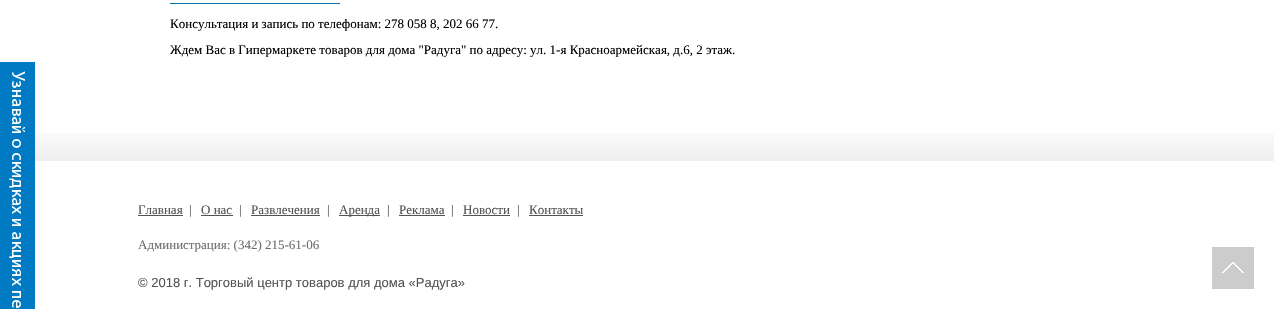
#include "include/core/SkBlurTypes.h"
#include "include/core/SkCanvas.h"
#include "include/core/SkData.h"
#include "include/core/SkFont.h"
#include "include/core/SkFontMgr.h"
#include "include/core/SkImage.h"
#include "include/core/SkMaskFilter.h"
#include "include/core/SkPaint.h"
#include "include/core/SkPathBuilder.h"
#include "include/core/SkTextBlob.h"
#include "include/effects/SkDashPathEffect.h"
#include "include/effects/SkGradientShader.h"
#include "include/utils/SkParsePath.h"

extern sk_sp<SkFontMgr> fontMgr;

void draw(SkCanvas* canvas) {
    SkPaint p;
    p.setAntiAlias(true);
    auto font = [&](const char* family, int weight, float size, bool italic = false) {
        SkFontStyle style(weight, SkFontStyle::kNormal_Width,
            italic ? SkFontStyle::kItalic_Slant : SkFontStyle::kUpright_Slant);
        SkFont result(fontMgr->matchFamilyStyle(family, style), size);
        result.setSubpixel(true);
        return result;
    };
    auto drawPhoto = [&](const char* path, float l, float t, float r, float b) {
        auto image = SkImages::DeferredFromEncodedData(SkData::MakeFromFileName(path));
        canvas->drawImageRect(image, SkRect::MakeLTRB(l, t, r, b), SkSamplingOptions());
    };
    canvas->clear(0xFFFFFFFF);
    drawPhoto("media/1.png", 0, 62, 35, 309);
    p.setColor(0xFF0078A3);
    canvas->drawRect(SkRect::MakeLTRB(170, 3, 340, 4), p);
    auto font1 = font("Liberation Serif", 400, 13);
    p.setColor(0xFF000000);
    canvas->drawString("Консультация и запись по телефонам: 278 058 8, 202 66 77.", 170, 28, font1, p);
    canvas->drawString("Ждем Вас в Гипермаркете товаров для дома \"Радуга\" по адресу: ул. 1-я Красноармейская, д.6, 2 этаж.", 170, 54, font1, p);
    p.setColor(0xFF535353);
    canvas->drawString("Главная", 138, 214, font1, p);
    canvas->drawRect(SkRect::MakeLTRB(138, 215, 183, 216), p);
    canvas->drawString("|", 189, 214, font1, p);
    canvas->drawString("О нас", 201, 214, font1, p);
    canvas->drawRect(SkRect::MakeLTRB(201, 215, 233, 216), p);
    canvas->drawString("|", 239, 214, font1, p);
    canvas->drawString("Развлечения", 251, 214, font1, p);
    canvas->drawRect(SkRect::MakeLTRB(251, 215, 320, 216), p);
    canvas->drawString("|", 327, 214, font1, p);
    canvas->drawRect(SkRect::MakeLTRB(339, 215, 380, 216), p);
    {
        const struct { const char* s; float x, y; } items[] = {
            {"Аренда", 339, 214},
            {"|", 387, 214},
            {"Реклама", 399, 214},
        };
        for (auto [s, x, y] : items) {
            canvas->drawString(s, x, y, font1, p);
        }
    }
    canvas->drawRect(SkRect::MakeLTRB(399, 215, 445, 216), p);
    canvas->drawString("|", 451, 214, font1, p);
    canvas->drawString("Новости", 463, 214, font1, p);
    canvas->drawRect(SkRect::MakeLTRB(463, 215, 510, 216), p);
    canvas->drawString("|", 517, 214, font1, p);
    canvas->drawString("Контакты", 529, 214, font1, p);
    canvas->drawRect(SkRect::MakeLTRB(529, 215, 583, 216), p);
    p.setColor(0xFF6D6D6D);
    canvas->drawString("Администрация: (342) 215-61-06", 138, 249, font1, p);
    auto font2 = font("Liberation Sans", 400, 13);
    p.setColor(0xFF535353);
    canvas->drawString("© 2018 г. Торговый центр товаров для дома «Радуга»", 138, 287, font2, p);
    p.setColor(0xFFCCCCCC);
    canvas->drawRect(SkRect::MakeLTRB(1212, 247, 1254, 289), p);
    drawPhoto("media/2.png", 1222, 262, 1244, 273);
    drawPhoto("media/3.png", 35, 133, 1274, 161);
}
